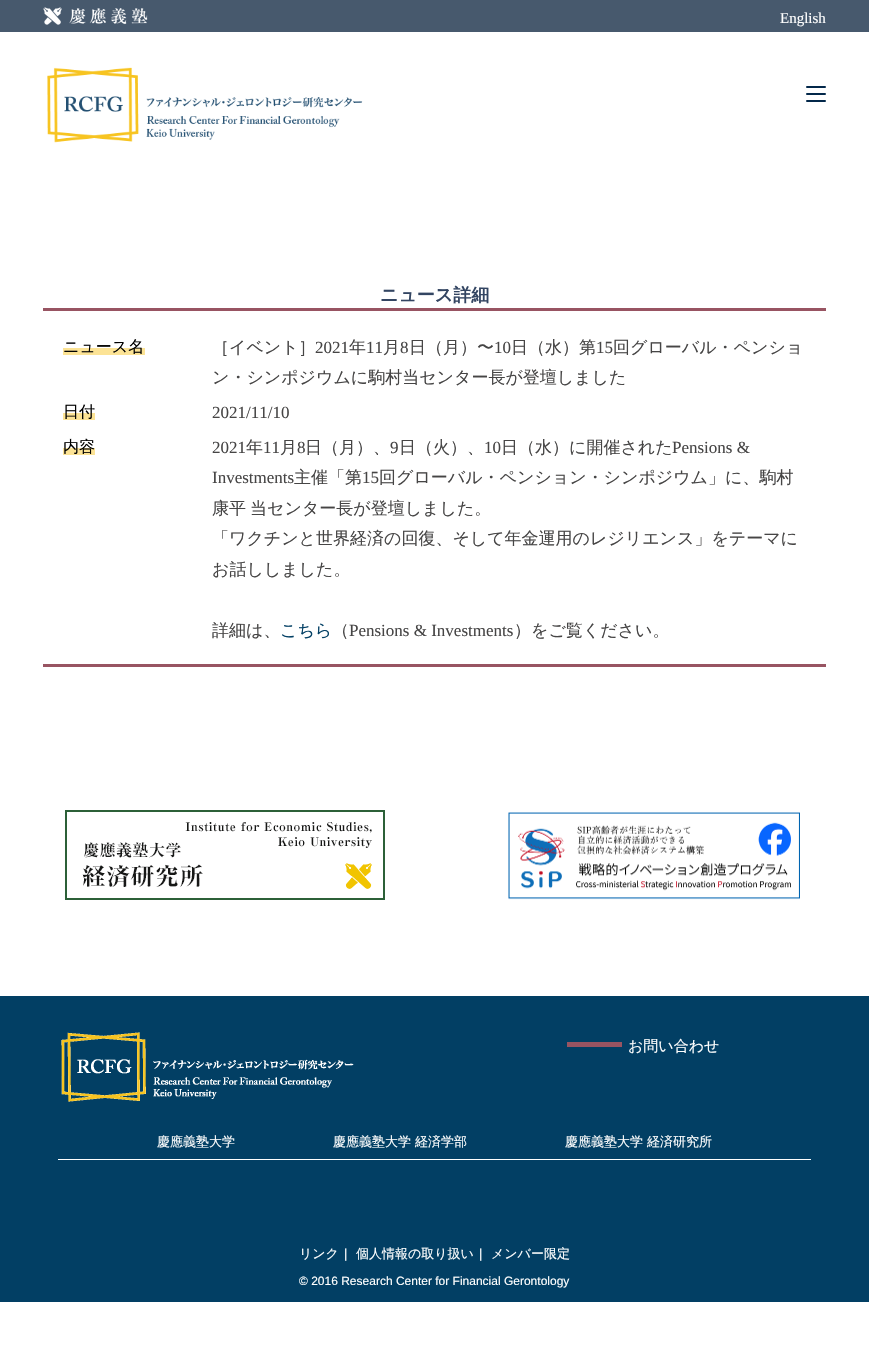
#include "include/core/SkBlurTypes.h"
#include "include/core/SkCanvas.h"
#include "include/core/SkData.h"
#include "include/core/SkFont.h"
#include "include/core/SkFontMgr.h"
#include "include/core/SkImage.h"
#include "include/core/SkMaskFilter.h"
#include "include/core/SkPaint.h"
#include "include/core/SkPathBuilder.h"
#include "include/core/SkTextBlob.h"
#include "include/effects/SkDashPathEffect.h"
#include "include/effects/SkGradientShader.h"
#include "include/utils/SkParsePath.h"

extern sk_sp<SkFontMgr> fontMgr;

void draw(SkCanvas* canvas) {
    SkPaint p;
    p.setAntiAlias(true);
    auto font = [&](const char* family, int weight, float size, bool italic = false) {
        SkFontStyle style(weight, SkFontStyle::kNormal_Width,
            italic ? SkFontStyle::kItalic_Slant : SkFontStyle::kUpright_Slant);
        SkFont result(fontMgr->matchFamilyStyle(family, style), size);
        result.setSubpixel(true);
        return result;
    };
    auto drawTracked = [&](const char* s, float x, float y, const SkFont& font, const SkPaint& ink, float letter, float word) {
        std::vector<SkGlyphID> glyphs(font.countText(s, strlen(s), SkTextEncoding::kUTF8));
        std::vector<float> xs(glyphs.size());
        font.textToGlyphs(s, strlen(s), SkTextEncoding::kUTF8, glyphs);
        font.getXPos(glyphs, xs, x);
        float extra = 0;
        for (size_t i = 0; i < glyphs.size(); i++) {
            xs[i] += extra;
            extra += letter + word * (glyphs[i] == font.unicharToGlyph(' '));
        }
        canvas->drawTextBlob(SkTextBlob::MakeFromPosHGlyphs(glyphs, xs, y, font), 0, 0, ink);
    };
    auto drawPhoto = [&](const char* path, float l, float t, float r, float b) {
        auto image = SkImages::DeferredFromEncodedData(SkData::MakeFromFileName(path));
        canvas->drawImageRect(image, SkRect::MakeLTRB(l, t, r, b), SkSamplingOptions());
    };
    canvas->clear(0xFFFFFFFF);
    p.setColor(0xFF47596D);
    canvas->drawRect(SkRect::MakeLTRB(0, 0, 869, 32), p);
    drawPhoto("media/1.png", 43, 7, 148, 25);
    auto font1 = font("Liberation Serif", 400, 15);
    p.setColor(0xFFFFFFFF);
    canvas->drawString("English", 780, 23, font1, p);
    drawPhoto("media/2.png", 47, 67, 363, 143);
    p.setColor(0xFF03284A);
    canvas->drawRoundRect(SkRect::MakeLTRB(806, 93, 826, 95), 1, 1, p);
    canvas->drawRoundRect(SkRect::MakeLTRB(806, 86, 826, 88), 1, 1, p);
    canvas->drawRoundRect(SkRect::MakeLTRB(806, 100, 826, 102), 1, 1, p);
    p.setColor(0xFF985462);
    canvas->drawRect(SkRect::MakeLTRB(43, 664, 826, 667), p);
    canvas->drawRect(SkRect::MakeLTRB(43, 308, 826, 311), p);
    auto font2 = font("WenQuanYi Zen Hei", 700, 18);
    p.setColor(0xFF334562);
    canvas->drawString("ニュース詳細", 380, 301, font2, p);
    p.setColor(0xFFFCE395);
    canvas->drawRect(SkRect::MakeLTRB(63, 348, 145, 355), p);
    auto font3 = font("WenQuanYi Zen Hei", 500, 16);
    p.setColor(0xFF000000);
    canvas->drawString("ニュース名", 63, 352, font3, p);
    auto font4 = font("WenQuanYi Zen Hei", 500, 17);
    p.setColor(0xFF464545);
    canvas->drawString("［イベント］", 212, 353, font4, p);
    auto font5 = font("Liberation Serif", 400, 17);
    canvas->drawString("2021", 315, 353, font5, p);
    canvas->drawString("年", 349, 353, font4, p);
    canvas->drawString("11", 366, 353, font5, p);
    canvas->drawString("月", 383, 353, font4, p);
    canvas->drawString("8", 400, 353, font5, p);
    canvas->drawString("日（月）〜", 409, 353, font4, p);
    canvas->drawString("10", 494, 353, font5, p);
    canvas->drawString("日（水）第", 511, 353, font4, p);
    canvas->drawString("15", 596, 353, font5, p);
    canvas->drawString("回グローバル・ペンショ", 613, 353, font4, p);
    canvas->drawString("ン・シンポジウムに駒村当センター長が登壇しました", 212, 383, font4, p);
    p.setColor(0xFFFCE395);
    canvas->drawRect(SkRect::MakeLTRB(63, 413, 95, 420), p);
    p.setColor(0xFF000000);
    canvas->drawString("日付", 63, 417, font3, p);
    p.setColor(0xFF464545);
    canvas->drawString("2021/11/10", 212, 418, font5, p);
    p.setColor(0xFFFCE395);
    canvas->drawRect(SkRect::MakeLTRB(63, 448, 95, 455), p);
    p.setColor(0xFF000000);
    canvas->drawString("内容", 63, 452, font3, p);
    p.setColor(0xFF464545);
    canvas->drawString("2021", 212, 453, font5, p);
    canvas->drawString("年", 246, 453, font4, p);
    canvas->drawString("11", 263, 453, font5, p);
    canvas->drawString("月", 280, 453, font4, p);
    canvas->drawString("8", 297, 453, font5, p);
    canvas->drawString("日（月）、", 305, 453, font4, p);
    canvas->drawString("9", 390, 453, font5, p);
    canvas->drawString("日（火）、", 399, 453, font4, p);
    canvas->drawString("10", 484, 453, font5, p);
    canvas->drawString("日（水）に開催された", 501, 453, font4, p);
    canvas->drawString("Pensions &", 672, 453, font5, p);
    canvas->drawString("Investments", 212, 483, font5, p);
    canvas->drawString("主催「第", 294, 483, font4, p);
    canvas->drawString("15", 362, 483, font5, p);
    canvas->drawString("回グローバル・ペンション・シンポジウム」に、駒村", 379, 483, font4, p);
    drawTracked("康平 当センター長が登壇しました。", 212, 514, font4, p, 0, -1);
    {
        const struct { const char* s; float x, y; } items[] = {
            {"「ワクチンと世界経済の回復、そして年金運用のレジリエンス」をテーマに", 212, 544},
            {"お話ししました。", 212, 575},
            {"詳細は、", 212, 636},
        };
        for (auto [s, x, y] : items) {
            canvas->drawString(s, x, y, font4, p);
        }
    }
    p.setColor(0xFF023F64);
    canvas->drawString("こちら", 280, 636, font4, p);
    p.setColor(0xFF464545);
    canvas->drawString("（", 332, 636, font4, p);
    canvas->drawString("Pensions & Investments", 349, 636, font5, p);
    canvas->drawString("）をご覧ください。", 514, 636, font4, p);
    drawPhoto("media/3.png", 65, 810, 385, 900);
    drawPhoto("media/4.png", 508, 812, 800, 900);
    p.setColor(0xFF023F64);
    canvas->drawRect(SkRect::MakeLTRB(0, 996, 869, 1302), p);
    drawPhoto("media/5.png", 61, 1032, 354, 1102);
    p.setColor(0xFF985462);
    canvas->drawRect(SkRect::MakeLTRB(567, 1042, 622, 1047), p);
    auto font6 = font("WenQuanYi Zen Hei", 500, 15);
    p.setColor(0xFFFFFFFF);
    canvas->drawString("お問い合わせ", 628, 1051, font6, p);
    canvas->drawRect(SkRect::MakeLTRB(58, 1159, 811, 1160), p);
    auto font7 = font("WenQuanYi Zen Hei", 500, 13);
    {
        const struct { const char* s; float x, y; } items[] = {
            {"慶應義塾大学", 157, 1146},
            {"慶應義塾大学 経済学部", 333, 1146},
            {"慶應義塾大学 経済研究所", 565, 1146},
            {"リンク", 299, 1258},
        };
        for (auto [s, x, y] : items) {
            canvas->drawString(s, x, y, font7, p);
        }
    }
    auto font8 = font("Liberation Sans", 400, 13);
    canvas->drawString("|", 344, 1258, font8, p);
    canvas->drawString("個人情報の取り扱い", 356, 1258, font7, p);
    canvas->drawString("|", 479, 1258, font8, p);
    canvas->drawString("メンバー限定", 491, 1258, font7, p);
    auto font9 = font("Liberation Sans", 400, 12);
    canvas->drawString("© 2016 Research Center for Financial Gerontology", 299, 1285, font9, p);
}
